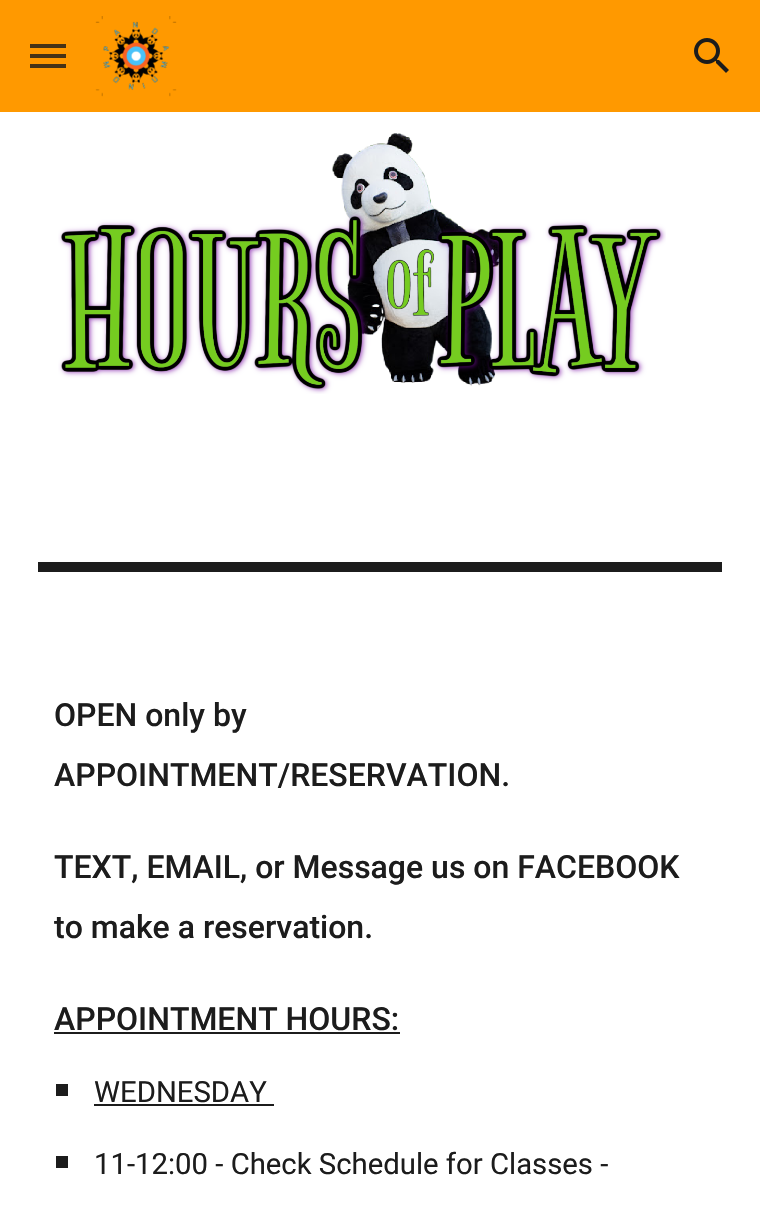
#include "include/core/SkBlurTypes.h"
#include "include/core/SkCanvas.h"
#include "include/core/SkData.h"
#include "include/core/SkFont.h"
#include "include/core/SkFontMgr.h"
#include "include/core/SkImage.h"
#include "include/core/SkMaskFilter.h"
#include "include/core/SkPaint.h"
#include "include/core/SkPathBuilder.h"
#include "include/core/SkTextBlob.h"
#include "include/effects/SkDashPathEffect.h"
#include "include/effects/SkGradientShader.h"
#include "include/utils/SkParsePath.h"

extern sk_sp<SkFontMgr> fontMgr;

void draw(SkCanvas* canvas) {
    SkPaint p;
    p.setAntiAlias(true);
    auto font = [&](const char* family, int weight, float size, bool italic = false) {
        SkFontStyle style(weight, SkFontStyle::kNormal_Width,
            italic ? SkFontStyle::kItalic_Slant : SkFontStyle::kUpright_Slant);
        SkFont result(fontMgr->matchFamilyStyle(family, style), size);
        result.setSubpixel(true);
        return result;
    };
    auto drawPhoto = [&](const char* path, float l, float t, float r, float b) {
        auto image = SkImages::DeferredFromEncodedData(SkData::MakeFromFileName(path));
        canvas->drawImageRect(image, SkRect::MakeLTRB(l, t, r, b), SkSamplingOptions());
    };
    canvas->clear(0xFFFFFFFF);
    p.setColor(0xFFFF9900);
    canvas->drawRect(SkRect::MakeLTRB(0, 0, 760, 112), p);
    drawPhoto("media/1.png", 95, 16, 177, 97);
    {
        const struct { float l, t, r, b; SkColor color; } items[] = {
            {30, 44, 66, 48, 0xFF453317},
            {30, 54, 66, 58, 0xFF453317},
            {30, 64, 66, 68, 0xD11C1C1C},
        };
        for (auto [l, t, r, b, color] : items) {
            p.setColor(color);
            canvas->drawRect(SkRect::MakeLTRB(l, t, r, b), p);
        }
    }
    drawPhoto("media/2.png", 694, 38, 729, 73);
    drawPhoto("media/3.png", 58, 133, 666, 394);
    p.setColor(0xFF1C1C1C);
    canvas->drawRect(SkRect::MakeLTRB(38, 562, 722, 572), p);
    auto font1 = font("Roboto", 500, 32);
    {
        const struct { const char* s; float x, y; } items[] = {
            {"OPEN only by", 54, 726},
            {"APPOINTMENT/RESERVATION.", 54, 786},
            {"TEXT, EMAIL, or Message us on FACEBOOK", 54, 878},
            {"to make a reservation.", 54, 938},
            {"APPOINTMENT HOURS:", 54, 1030},
        };
        for (auto [s, x, y] : items) {
            canvas->drawString(s, x, y, font1, p);
        }
    }
    canvas->drawRect(SkRect::MakeLTRB(54, 1032, 400, 1034), p);
    canvas->drawRect(SkRect::MakeLTRB(56, 1084, 68, 1096), p);
    auto font2 = font("Roboto", 400, 29.3f);
    canvas->drawString("WEDNESDAY", 94, 1102, font2, p);
    canvas->drawRect(SkRect::MakeLTRB(94, 1104, 274, 1106), p);
    canvas->drawRect(SkRect::MakeLTRB(56, 1156, 68, 1168), p);
    canvas->drawString("11-12:00 - Check Schedule for Classes -", 94, 1174, font2, p);
}
